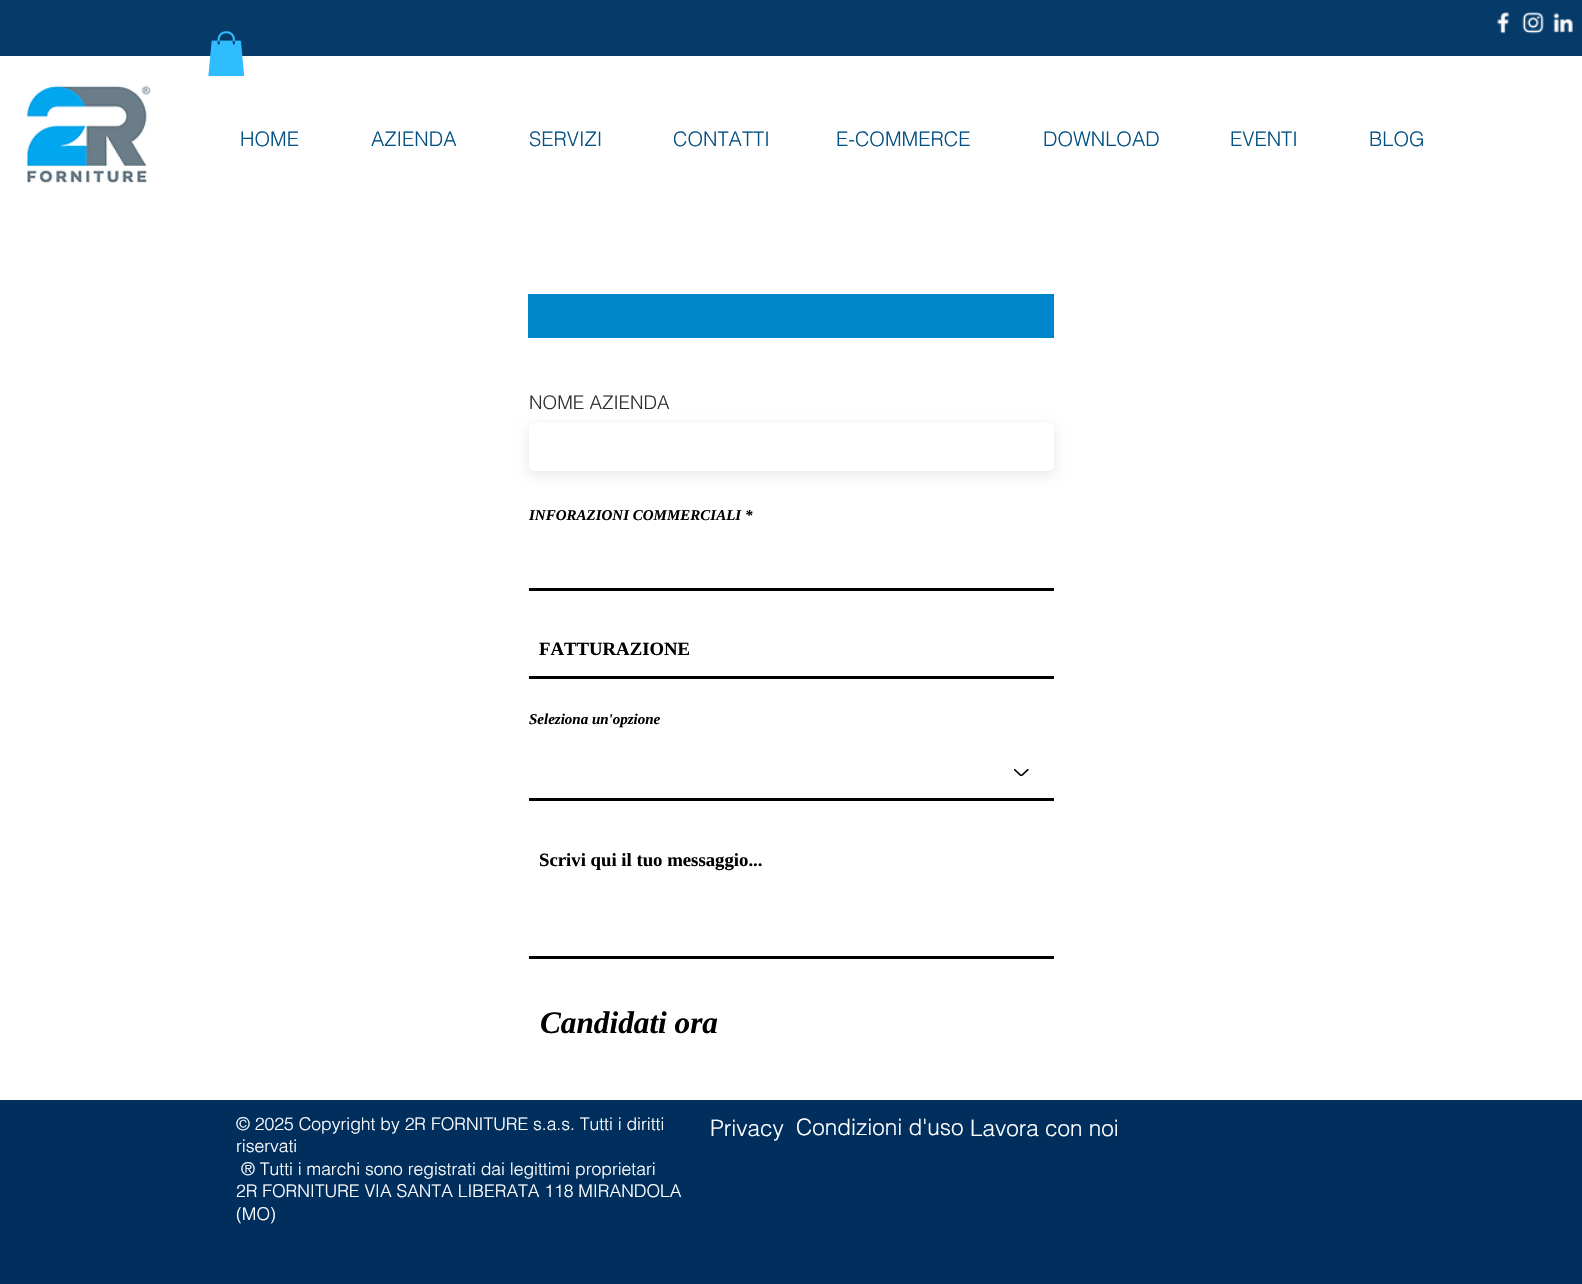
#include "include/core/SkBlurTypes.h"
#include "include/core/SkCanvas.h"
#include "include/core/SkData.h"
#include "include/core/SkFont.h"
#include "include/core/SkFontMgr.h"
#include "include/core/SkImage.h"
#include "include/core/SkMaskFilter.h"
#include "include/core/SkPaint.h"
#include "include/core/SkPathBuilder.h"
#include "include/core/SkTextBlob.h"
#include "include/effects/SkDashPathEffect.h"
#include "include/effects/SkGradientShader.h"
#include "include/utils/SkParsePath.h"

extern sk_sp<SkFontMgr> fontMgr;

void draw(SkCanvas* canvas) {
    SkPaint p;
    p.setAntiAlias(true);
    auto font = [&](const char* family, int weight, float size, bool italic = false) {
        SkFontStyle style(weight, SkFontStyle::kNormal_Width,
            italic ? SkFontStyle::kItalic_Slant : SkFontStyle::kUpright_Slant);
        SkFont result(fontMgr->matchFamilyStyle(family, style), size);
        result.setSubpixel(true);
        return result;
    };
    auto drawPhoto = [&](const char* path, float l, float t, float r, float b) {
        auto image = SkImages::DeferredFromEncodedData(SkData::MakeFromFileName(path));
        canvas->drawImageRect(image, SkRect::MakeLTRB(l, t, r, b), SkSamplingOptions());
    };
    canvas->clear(0xFFFFFFFF);
    p.setColor(0xFF053A69);
    canvas->drawRect(SkRect::MakeLTRB(0, 0, 1582, 56), p);
    drawPhoto("media/1.png", 1497, 12, 1509, 34);
    drawPhoto("media/2.png", 1522, 12, 1544, 34);
    drawPhoto("media/3.png", 1553, 13, 1573, 33);
    drawPhoto("media/4.png", 208, 31, 245, 77);
    drawPhoto("media/5.png", 26, 85, 151, 184);
    auto font1 = font("helvetica", 300, 20);
    p.setColor(0xFF045184);
    {
        const struct { const char* s; float x, y; } items[] = {
            {"HOME", 240, 146},
            {"AZIENDA", 371, 146},
            {"SERVIZI", 529, 146},
            {"CONTATTI", 673, 146},
            {"E-COMMERCE", 836, 146},
            {"DOWNLOAD", 1043, 146},
            {"EVENTI", 1230, 146},
            {"BLOG", 1369, 146},
        };
        for (auto [s, x, y] : items) {
            canvas->drawString(s, x, y, font1, p);
        }
    }
    p.setColor(0xFF0087CB);
    canvas->drawRect(SkRect::MakeLTRB(528, 294, 1054, 338), p);
    auto font2 = font("helvetica", 300, 18.75f);
    p.setColor(0xFF2F2E2E);
    canvas->drawString("NOME AZIENDA", 529, 409, font2, p);
    p.setColor(0x14000000);
    p.setMaskFilter(SkMaskFilter::MakeBlur(kNormal_SkBlurStyle, 6));
    canvas->drawRoundRect(SkRect::MakeLTRB(528, 425, 1055, 476), 6, 6, p);
    p.setMaskFilter(nullptr);
    p.setColor(0xFFFFFFFF);
    canvas->drawRoundRect(SkRect::MakeLTRB(529, 423, 1054, 471), 5, 5, p);
    auto font3 = font("Liberation Serif", 700, 15, true);
    p.setColor(0xFF000000);
    canvas->drawString("INFORAZIONI COMMERCIALI *", 529, 520, font3, p);
    canvas->drawRect(SkRect::MakeLTRB(529, 588, 1054, 591), p);
    canvas->drawRect(SkRect::MakeLTRB(529, 676, 1054, 679), p);
    auto font4 = font("Liberation Serif", 700, 18.75f);
    canvas->drawString("FATTURAZIONE", 539, 655, font4, p);
    canvas->drawString("Seleziona un'opzione", 529, 724, font3, p);
    drawPhoto("media/6.png", 1014, 769, 1029, 776);
    canvas->drawRect(SkRect::MakeLTRB(529, 798, 1054, 801), p);
    canvas->drawRect(SkRect::MakeLTRB(529, 956, 1054, 959), p);
    canvas->drawString("Scrivi qui il tuo messaggio...", 539, 866, font4, p);
    auto font5 = font("Liberation Serif", 700, 31.25f, true);
    canvas->drawString("Candidati ora", 540, 1033, font5, p);
    p.setColor(0xFF002E5D);
    canvas->drawRect(SkRect::MakeLTRB(0, 1100, 1582, 1284), p);
    auto font6 = font("helvetica", 300, 17.5f);
    p.setColor(0xFFFFFFFF);
    {
        const struct { const char* s; float x, y; } items[] = {
            {"© 2025 Copyright by 2R FORNITURE s.a.s. Tutti i diritti", 236, 1130},
            {"riservati", 236, 1152},
            {"® Tutti i marchi sono registrati dai legittimi proprietari", 241, 1175},
            {"2R FORNITURE VIA SANTA LIBERATA 118 MIRANDOLA", 236, 1197},
            {"(MO)", 236, 1220},
        };
        for (auto [s, x, y] : items) {
            canvas->drawString(s, x, y, font6, p);
        }
    }
    auto font7 = font("helvetica", 300, 22.5f);
    {
        const struct { const char* s; float x, y; } items[] = {
            {"Privacy", 710, 1136},
            {"Condizioni d'uso", 796, 1135},
            {"Lavora con noi", 970, 1136},
        };
        for (auto [s, x, y] : items) {
            canvas->drawString(s, x, y, font7, p);
        }
    }
}
